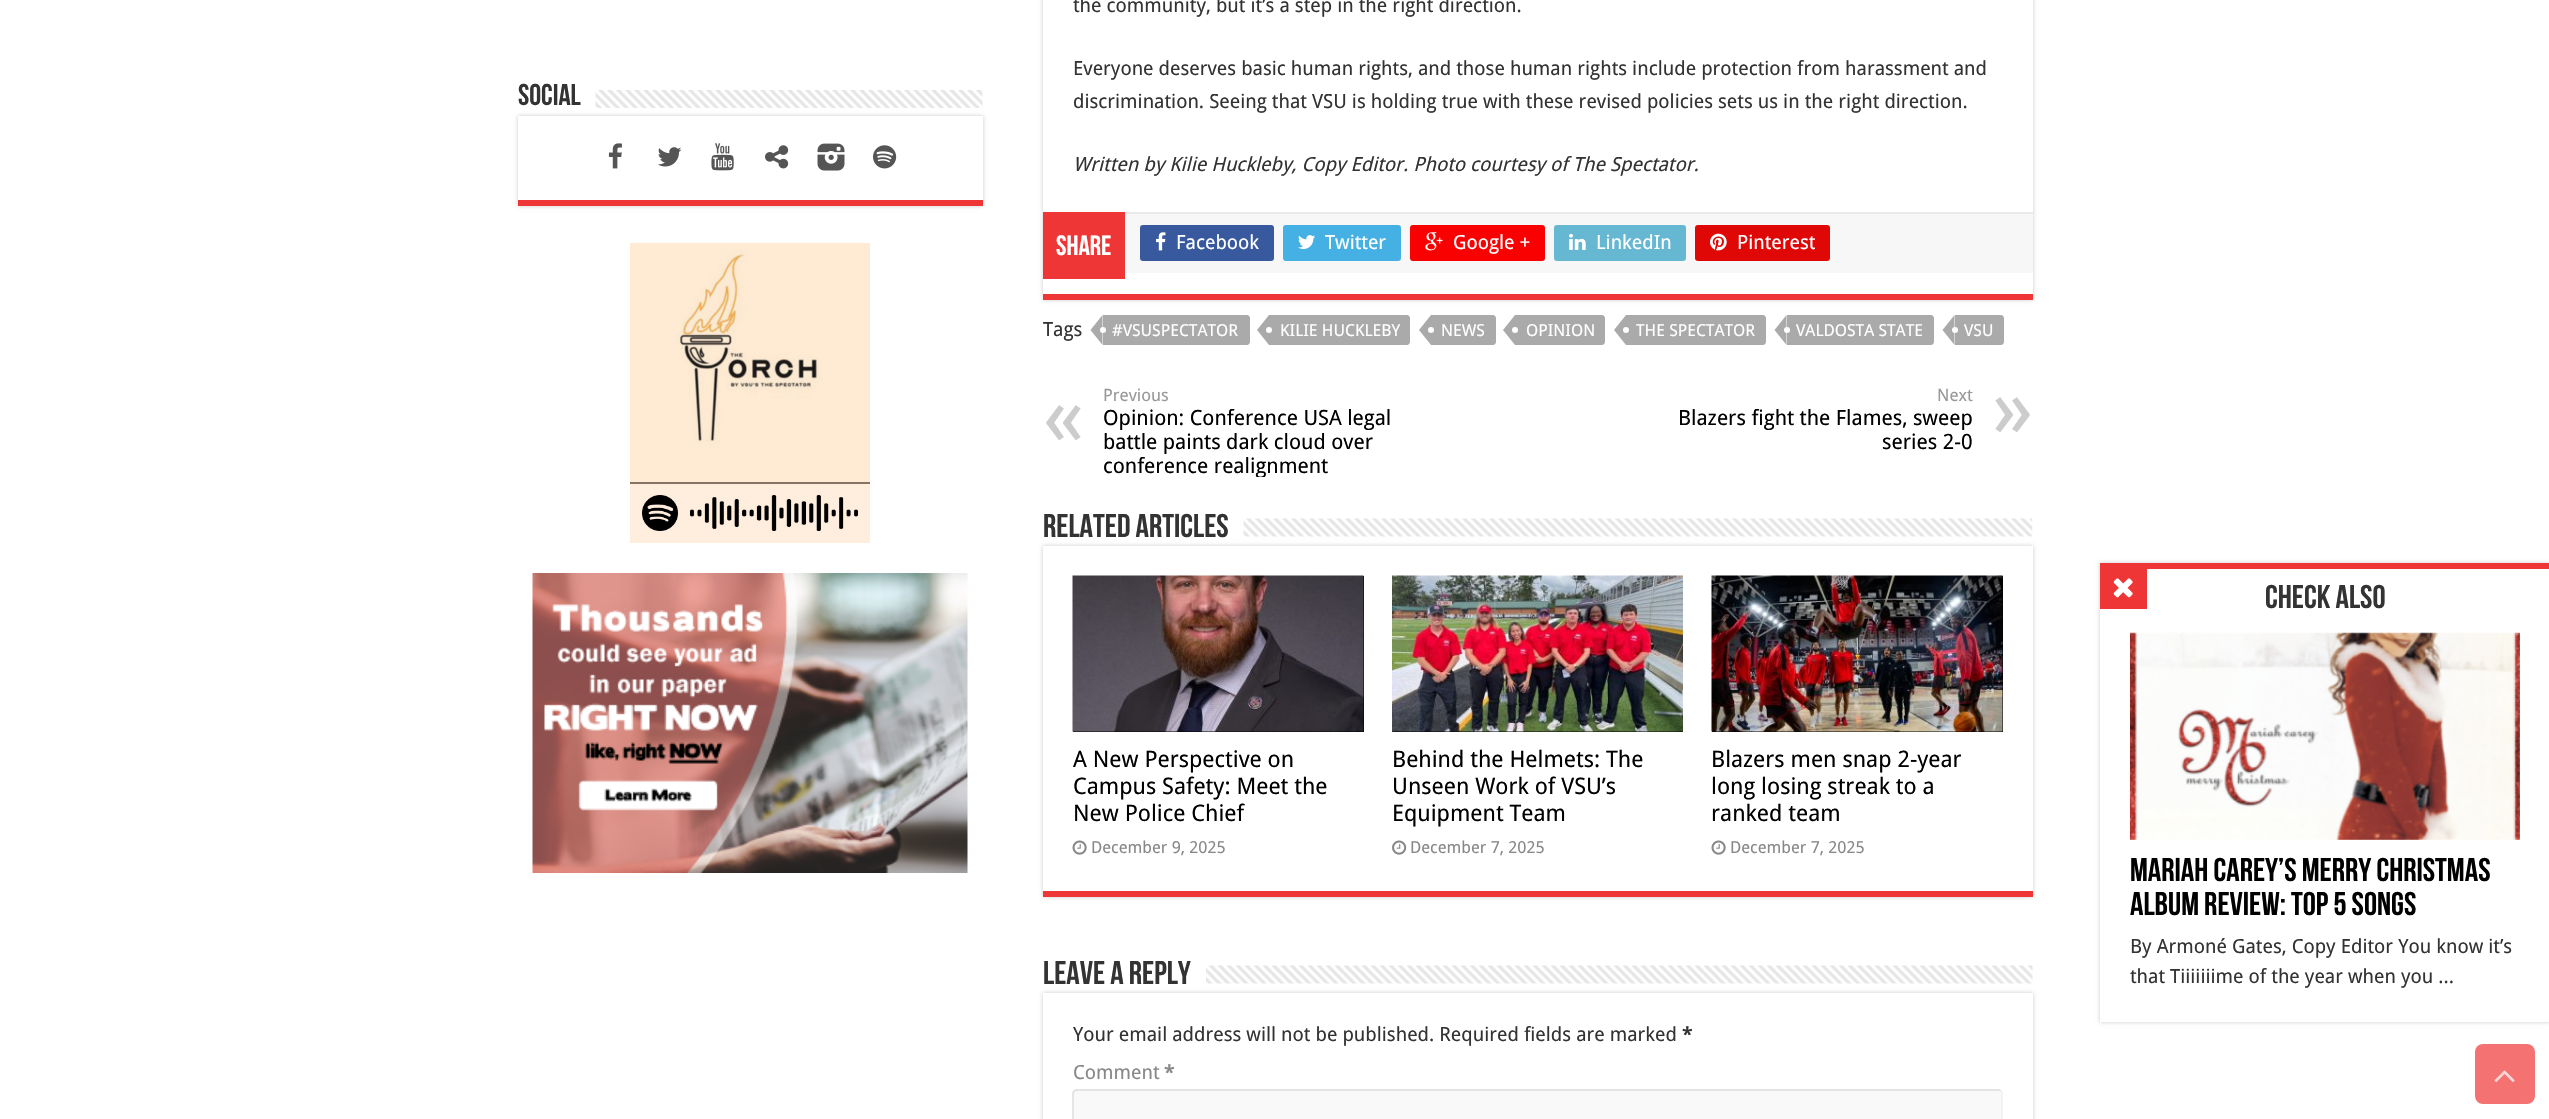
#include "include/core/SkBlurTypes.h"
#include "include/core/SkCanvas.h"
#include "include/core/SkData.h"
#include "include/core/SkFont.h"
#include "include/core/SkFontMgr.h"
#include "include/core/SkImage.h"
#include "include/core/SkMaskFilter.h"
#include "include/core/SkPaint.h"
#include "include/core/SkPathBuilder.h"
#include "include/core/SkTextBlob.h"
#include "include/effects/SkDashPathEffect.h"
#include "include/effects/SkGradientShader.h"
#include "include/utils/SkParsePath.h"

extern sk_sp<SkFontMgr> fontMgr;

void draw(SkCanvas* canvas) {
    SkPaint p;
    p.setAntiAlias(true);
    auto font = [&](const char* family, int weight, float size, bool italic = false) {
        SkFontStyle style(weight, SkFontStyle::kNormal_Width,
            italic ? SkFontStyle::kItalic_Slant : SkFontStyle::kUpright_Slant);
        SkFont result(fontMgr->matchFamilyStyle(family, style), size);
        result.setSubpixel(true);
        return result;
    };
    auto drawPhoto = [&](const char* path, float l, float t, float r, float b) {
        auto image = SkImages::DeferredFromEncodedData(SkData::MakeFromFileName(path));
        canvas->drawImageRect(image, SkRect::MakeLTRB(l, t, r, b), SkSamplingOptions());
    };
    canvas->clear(0xFFFFFFFF);
    auto font1 = font("Bebas Neue", 700, 30);
    p.setColor(0xFF333333);
    canvas->drawString("Social", 518, 105, font1, p);
    drawPhoto("media/1.png", 595, 90, 983, 108);
    p.setColor(0xFFCACACA);
    p.setMaskFilter(SkMaskFilter::MakeBlur(kNormal_SkBlurStyle, 2));
    canvas->drawRect(SkRect::MakeLTRB(518, 116, 983, 206), p);
    p.setMaskFilter(nullptr);
    p.setColor(0xFFFFFFFF);
    canvas->drawRect(SkRect::MakeLTRB(518, 116, 983, 200), p);
    p.setColor(0xFFEF3636);
    canvas->drawRect(SkRect::MakeLTRB(518, 200, 983, 206), p);
    drawPhoto("media/2.png", 608, 143, 622, 169);
    drawPhoto("media/3.png", 658, 147, 682, 167);
    drawPhoto("media/4.png", 711, 143, 734, 171);
    drawPhoto("media/5.png", 765, 145, 789, 169);
    drawPhoto("media/6.png", 817, 143, 845, 171);
    drawPhoto("media/7.png", 873, 145, 897, 169);
    drawPhoto("media/8.png", 630, 243, 870, 543);
    drawPhoto("media/9.png", 532, 573, 968, 873);
    p.setColor(0xFFCACACA);
    p.setMaskFilter(SkMaskFilter::MakeBlur(kNormal_SkBlurStyle, 2));
    canvas->drawRect(SkRect::MakeLTRB(1043, -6, 2033, 300), p);
    p.setMaskFilter(nullptr);
    p.setColor(0xFFFFFFFF);
    canvas->drawRect(SkRect::MakeLTRB(1043, 0, 2033, 294), p);
    p.setColor(0xFFEF3636);
    canvas->drawRect(SkRect::MakeLTRB(1043, 294, 2033, 300), p);
    auto font2 = font("Droid Sans", 400, 19.5f);
    p.setColor(0xFF333333);
    {
        const struct { const char* s; float x, y; } items[] = {
            {"the community, but it’s a step in the right direction.", 1073, 12},
            {"Everyone deserves basic human rights, and those human rights include protection from harassment and", 1073, 75},
            {"discrimination. Seeing that VSU is holding true with these revised policies sets us in the right direction.", 1073, 108},
        };
        for (auto [s, x, y] : items) {
            canvas->drawString(s, x, y, font2, p);
        }
    }
    auto font3 = font("Droid Sans", 400, 19.5f, true);
    canvas->drawString("Written by Kilie Huckleby, Copy Editor. Photo courtesy of The Spectator.", 1073, 171, font3, p);
    {
        const struct { float l, t, r, b; SkColor color; } items[] = {
            {1125, 214, 2033, 273, 0xFFF7F7F7},
            {1125, 212, 2033, 214, 0xFFEAEAEA},
            {1043, 212, 1125, 279, 0xFFEF3636},
        };
        for (auto [l, t, r, b, color] : items) {
            p.setColor(color);
            canvas->drawRect(SkRect::MakeLTRB(l, t, r, b), p);
        }
    }
    auto font4 = font("Bebas Neue", 700, 28);
    p.setColor(0xFFFFFFFF);
    canvas->drawString("Share", 1056, 255, font4, p);
    p.setColor(0xFF39599F);
    canvas->drawRoundRect(SkRect::MakeLTRB(1140, 225, 1274, 261), 3, 3, p);
    drawPhoto("media/10.png", 1156, 232, 1166, 251);
    p.setColor(0xFFFFFFFF);
    canvas->drawString("Facebook", 1176, 249, font2, p);
    p.setColor(0xFF45B0E3);
    canvas->drawRoundRect(SkRect::MakeLTRB(1283, 225, 1401, 261), 3, 3, p);
    drawPhoto("media/11.png", 1298, 235, 1315, 249);
    p.setColor(0xFFFFFFFF);
    canvas->drawString("Twitter", 1325, 249, font2, p);
    p.setColor(0xFFFA0101);
    canvas->drawRoundRect(SkRect::MakeLTRB(1410, 225, 1545, 261), 3, 3, p);
    drawPhoto("media/12.png", 1425, 232, 1443, 251);
    p.setColor(0xFFFFFFFF);
    canvas->drawString("Google +", 1453, 249, font2, p);
    p.setColor(0xFF65B7D2);
    canvas->drawRoundRect(SkRect::MakeLTRB(1554, 225, 1686, 261), 3, 3, p);
    drawPhoto("media/13.png", 1569, 233, 1586, 250);
    p.setColor(0xFFFFFFFF);
    canvas->drawString("LinkedIn", 1596, 249, font2, p);
    p.setColor(0xFFE00707);
    canvas->drawRoundRect(SkRect::MakeLTRB(1695, 225, 1830, 261), 3, 3, p);
    drawPhoto("media/14.png", 1710, 233, 1727, 251);
    p.setColor(0xFFFFFFFF);
    canvas->drawString("Pinterest", 1737, 249, font2, p);
    p.setColor(0xFF333333);
    canvas->drawString("Tags", 1043, 336, font2, p);
    p.setColor(0xFFAAAAAA);
    canvas->drawPath(SkPathBuilder().moveTo(1103, 315).lineTo(1247, 315).cubicTo(1248.5f, 315, 1250, 316.5f, 1250, 318).lineTo(1250, 342).cubicTo(1250, 343.5f, 1248.5f, 345, 1247, 345).lineTo(1103, 345).close().detach(), p);
    canvas->drawPath(SkPathBuilder().moveTo(1102.5f, 315).lineTo(1102.5f, 345).lineTo(1090.5f, 330).close().detach(), p);
    auto font5 = font("Droid Sans", 400, 16.5f);
    p.setColor(0xFFFFFFFF);
    canvas->drawString("#VSUSPECTATOR", 1112, 336, font5, p);
    canvas->drawCircle(1103, 330, 3, p);
    p.setColor(0xFFAAAAAA);
    canvas->drawPath(SkPathBuilder().moveTo(1269, 315).lineTo(1407, 315).cubicTo(1408.5f, 315, 1410, 316.5f, 1410, 318).lineTo(1410, 342).cubicTo(1410, 343.5f, 1408.5f, 345, 1407, 345).lineTo(1269, 345).close().detach(), p);
    canvas->drawPath(SkPathBuilder().moveTo(1269, 315).lineTo(1269, 345).lineTo(1257, 330).close().detach(), p);
    p.setColor(0xFFFFFFFF);
    canvas->drawString("KILIE HUCKLEBY", 1280, 336, font5, p);
    canvas->drawCircle(1269, 330, 3, p);
    p.setColor(0xFFAAAAAA);
    canvas->drawPath(SkPathBuilder().moveTo(1431, 315).lineTo(1493, 315).cubicTo(1494.5f, 315, 1496, 316.5f, 1496, 318).lineTo(1496, 342).cubicTo(1496, 343.5f, 1494.5f, 345, 1493, 345).lineTo(1431, 345).close().detach(), p);
    canvas->drawPath(SkPathBuilder().moveTo(1431, 315).lineTo(1431, 345).lineTo(1419, 330).close().detach(), p);
    p.setColor(0xFFFFFFFF);
    canvas->drawString("NEWS", 1441, 336, font5, p);
    canvas->drawCircle(1431, 330, 3, p);
    p.setColor(0xFFAAAAAA);
    canvas->drawPath(SkPathBuilder().moveTo(1515, 315).lineTo(1602, 315).cubicTo(1603.5f, 315, 1605, 316.5f, 1605, 318).lineTo(1605, 342).cubicTo(1605, 343.5f, 1603.5f, 345, 1602, 345).lineTo(1515, 345).close().detach(), p);
    canvas->drawPath(SkPathBuilder().moveTo(1515, 315).lineTo(1515, 345).lineTo(1503, 330).close().detach(), p);
    p.setColor(0xFFFFFFFF);
    canvas->drawString("OPINION", 1526, 336, font5, p);
    canvas->drawCircle(1515, 330, 3, p);
    p.setColor(0xFFAAAAAA);
    canvas->drawPath(SkPathBuilder().moveTo(1626, 315).lineTo(1763, 315).cubicTo(1764.5f, 315, 1766, 316.5f, 1766, 318).lineTo(1766, 342).cubicTo(1766, 343.5f, 1764.5f, 345, 1763, 345).lineTo(1626, 345).close().detach(), p);
    canvas->drawPath(SkPathBuilder().moveTo(1626, 315).lineTo(1626, 345).lineTo(1614, 330).close().detach(), p);
    p.setColor(0xFFFFFFFF);
    canvas->drawString("THE SPECTATOR", 1636, 336, font5, p);
    canvas->drawCircle(1626, 330, 3, p);
    p.setColor(0xFFAAAAAA);
    canvas->drawPath(SkPathBuilder().moveTo(1787, 315).lineTo(1931, 315).cubicTo(1932.5f, 315, 1934, 316.5f, 1934, 318).lineTo(1934, 342).cubicTo(1934, 343.5f, 1932.5f, 345, 1931, 345).lineTo(1787, 345).close().detach(), p);
    canvas->drawPath(SkPathBuilder().moveTo(1786.5f, 315).lineTo(1786.5f, 345).lineTo(1774.5f, 330).close().detach(), p);
    p.setColor(0xFFFFFFFF);
    canvas->drawString("VALDOSTA STATE", 1796, 336, font5, p);
    canvas->drawCircle(1787, 330, 3, p);
    p.setColor(0xFFAAAAAA);
    canvas->drawPath(SkPathBuilder().moveTo(1955, 315).lineTo(2001, 315).cubicTo(2002.5f, 315, 2004, 316.5f, 2004, 318).lineTo(2004, 342).cubicTo(2004, 343.5f, 2002.5f, 345, 2001, 345).lineTo(1955, 345).close().detach(), p);
    canvas->drawPath(SkPathBuilder().moveTo(1954.5f, 315).lineTo(1954.5f, 345).lineTo(1942.5f, 330).close().detach(), p);
    p.setColor(0xFFFFFFFF);
    canvas->drawString("VSU", 1964, 336, font5, p);
    canvas->drawCircle(1955, 330, 3, p);
    auto font6 = font("Droid Sans", 400, 17);
    p.setColor(0xFF999999);
    canvas->drawString("Previous", 1103, 401, font6, p);
    auto font7 = font("Droid Sans", 400, 84);
    p.setColor(0xFFCCCCCC);
    canvas->drawString("«", 1043, 445, font7, p);
    auto font8 = font("Droid Sans", 400, 21);
    p.setColor(0xFF000000);
    canvas->drawString("Opinion: Conference USA legal", 1103, 425, font8, p);
    canvas->drawString("battle paints dark cloud over", 1103, 449, font8, p);
    canvas->save();
    canvas->clipRect(SkRect::MakeLTRB(1043, 386, 2033, 477));
    canvas->drawString("conference realignment", 1103, 473, font8, p);
    canvas->restore();
    p.setColor(0xFF999999);
    canvas->drawString("Next", 1937, 401, font6, p);
    p.setColor(0xFF000000);
    canvas->drawString("Blazers fight the Flames, sweep", 1678, 425, font8, p);
    p.setColor(0xFFCCCCCC);
    canvas->drawString("»", 1992, 437, font7, p);
    p.setColor(0xFF000000);
    canvas->drawString("series 2-0", 1882, 449, font8, p);
    auto font9 = font("Bebas Neue", 700, 33);
    p.setColor(0xFF333333);
    canvas->drawString("Related Articles", 1043, 537, font9, p);
    drawPhoto("media/15.png", 1243, 518, 2033, 537);
    p.setColor(0xFFCACACA);
    p.setMaskFilter(SkMaskFilter::MakeBlur(kNormal_SkBlurStyle, 2));
    canvas->drawRect(SkRect::MakeLTRB(1043, 546, 2033, 897), p);
    p.setMaskFilter(nullptr);
    {
        const struct { float l, t, r, b; SkColor color; } items[] = {
            {1043, 546, 2033, 891, 0xFFFFFFFF},
            {1043, 891, 2033, 897, 0xFFEF3636},
            {1073, 576, 1364, 732, 0xFF000000},
        };
        for (auto [l, t, r, b, color] : items) {
            p.setColor(color);
            canvas->drawRect(SkRect::MakeLTRB(l, t, r, b), p);
        }
    }
    drawPhoto("media/16.png", 1072, 575, 1364, 732);
    auto font10 = font("Droid Sans", 400, 22.75f);
    {
        const struct { const char* s; float x, y; } items[] = {
            {"A New Perspective on", 1073, 767},
            {"Campus Safety: Meet the", 1073, 794},
            {"New Police Chief", 1073, 821},
        };
        for (auto [s, x, y] : items) {
            canvas->drawString(s, x, y, font10, p);
        }
    }
    drawPhoto("media/17.png", 1072, 840, 1087, 855);
    p.setColor(0xFF888888);
    canvas->drawString("December 9, 2025", 1091, 853, font5, p);
    p.setColor(0xFF000000);
    canvas->drawRect(SkRect::MakeLTRB(1392, 731, 1683, 732), p);
    drawPhoto("media/18.png", 1392, 575, 1683, 732);
    {
        const struct { const char* s; float x, y; } items[] = {
            {"Behind the Helmets: The", 1392, 767},
            {"Unseen Work of VSU’s", 1392, 794},
            {"Equipment Team", 1392, 821},
        };
        for (auto [s, x, y] : items) {
            canvas->drawString(s, x, y, font10, p);
        }
    }
    drawPhoto("media/19.png", 1392, 840, 1407, 855);
    p.setColor(0xFF888888);
    canvas->drawString("December 7, 2025", 1410, 853, font5, p);
    p.setColor(0xFF000000);
    canvas->drawRect(SkRect::MakeLTRB(1712, 576, 2003, 732), p);
    drawPhoto("media/20.png", 1711, 575, 2003, 732);
    {
        const struct { const char* s; float x, y; } items[] = {
            {"Blazers men snap 2-year", 1711, 767},
            {"long losing streak to a", 1711, 794},
            {"ranked team", 1711, 821},
        };
        for (auto [s, x, y] : items) {
            canvas->drawString(s, x, y, font10, p);
        }
    }
    drawPhoto("media/17.png", 1711, 840, 1726, 855);
    p.setColor(0xFF888888);
    canvas->drawString("December 7, 2025", 1730, 853, font5, p);
    p.setColor(0xFFCACACA);
    p.setMaskFilter(SkMaskFilter::MakeBlur(kNormal_SkBlurStyle, 2));
    canvas->drawRect(SkRect::MakeLTRB(2100, 563, 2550, 1022), p);
    p.setMaskFilter(nullptr);
    {
        const struct { float l, t, r, b; SkColor color; } items[] = {
            {2100, 569, 2549, 1022, 0xFFFFFFFF},
            {2100, 563, 2549, 569, 0xFFEF3636},
            {2100, 569, 2147, 609, 0xFFEF3636},
        };
        for (auto [l, t, r, b, color] : items) {
            p.setColor(color);
            canvas->drawRect(SkRect::MakeLTRB(l, t, r, b), p);
        }
    }
    drawPhoto("media/21.png", 2113, 578, 2133, 598);
    p.setColor(0xFF333333);
    canvas->drawString("Check Also", 2265, 608, font9, p);
    drawPhoto("media/22.png", 2130, 632, 2520, 840);
    p.setColor(0xFF000000);
    canvas->drawString("Mariah Carey’s Merry Christmas", 2130, 881, font9, p);
    canvas->drawString("Album Review: Top 5 songs", 2130, 915, font9, p);
    p.setColor(0xFF333333);
    canvas->drawString("By Armoné Gates, Copy Editor You know it’s", 2130, 953, font2, p);
    canvas->drawString("that Tiiiiiiime of the year when you ...", 2130, 983, font2, p);
    canvas->drawString("Leave a Reply", 1043, 984, font9, p);
    drawPhoto("media/23.png", 1206, 965, 2033, 984);
    p.setColor(0xFFCACACA);
    p.setMaskFilter(SkMaskFilter::MakeBlur(kNormal_SkBlurStyle, 2));
    canvas->drawRect(SkRect::MakeLTRB(1043, 993, 2033, 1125), p);
    p.setMaskFilter(nullptr);
    p.setColor(0xFFFFFFFF);
    canvas->drawRect(SkRect::MakeLTRB(1043, 993, 2033, 1119), p);
    p.setColor(0xFF333333);
    canvas->drawString("Your email address will not be published. Required fields are marked", 1073, 1041, font2, p);
    auto font11 = font("Droid Sans", 700, 19.5f);
    canvas->drawString("*", 1682, 1041, font11, p);
    p.setColor(0xFF888888);
    canvas->drawString("Comment", 1073, 1079, font2, p);
    canvas->drawString("*", 1164, 1079, font11, p);
    p.setColor(0xFFF9F9F9);
    canvas->drawRoundRect(SkRect::MakeLTRB(1073, 1089, 2003, 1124), 5, 5, p);
    p.setStyle(SkPaint::kStroke_Style);
    p.setStrokeWidth(1.5f);
    p.setColor(0xFFF1F1F1);
    canvas->drawPath(SkPathBuilder().moveTo(2000.5f, 1091).cubicTo(2001.5f, 1091.5f, 2002, 1092.5f, 2002, 1093.5f).lineTo(2002, 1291.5f).cubicTo(2002, 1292.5f, 2001.5f, 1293.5f, 2000.5f, 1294).cubicTo(2000, 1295, 1999, 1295, 1998, 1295).lineTo(1077, 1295).cubicTo(1076, 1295, 1075, 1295, 1074.5f, 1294).detach(), p);
    p.setColor(0xFFDDDDDD);
    canvas->drawPath(SkPathBuilder().moveTo(1074.5f, 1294).cubicTo(1073.5f, 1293.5f, 1073, 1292.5f, 1073, 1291.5f).lineTo(1073, 1093.5f).cubicTo(1073, 1092.5f, 1073.5f, 1091.5f, 1074.5f, 1091).cubicTo(1075, 1090, 1076, 1090, 1077, 1090).lineTo(1998, 1090).cubicTo(1999, 1090, 2000, 1090, 2000.5f, 1091).detach(), p);
    p.setStyle(SkPaint::kFill_Style);
    p.setColor(0xFFF47272);
    canvas->drawRoundRect(SkRect::MakeLTRB(2475, 1044, 2535, 1104), 8, 8, p);
    drawPhoto("media/24.png", 2494, 1070, 2515, 1082);
}
